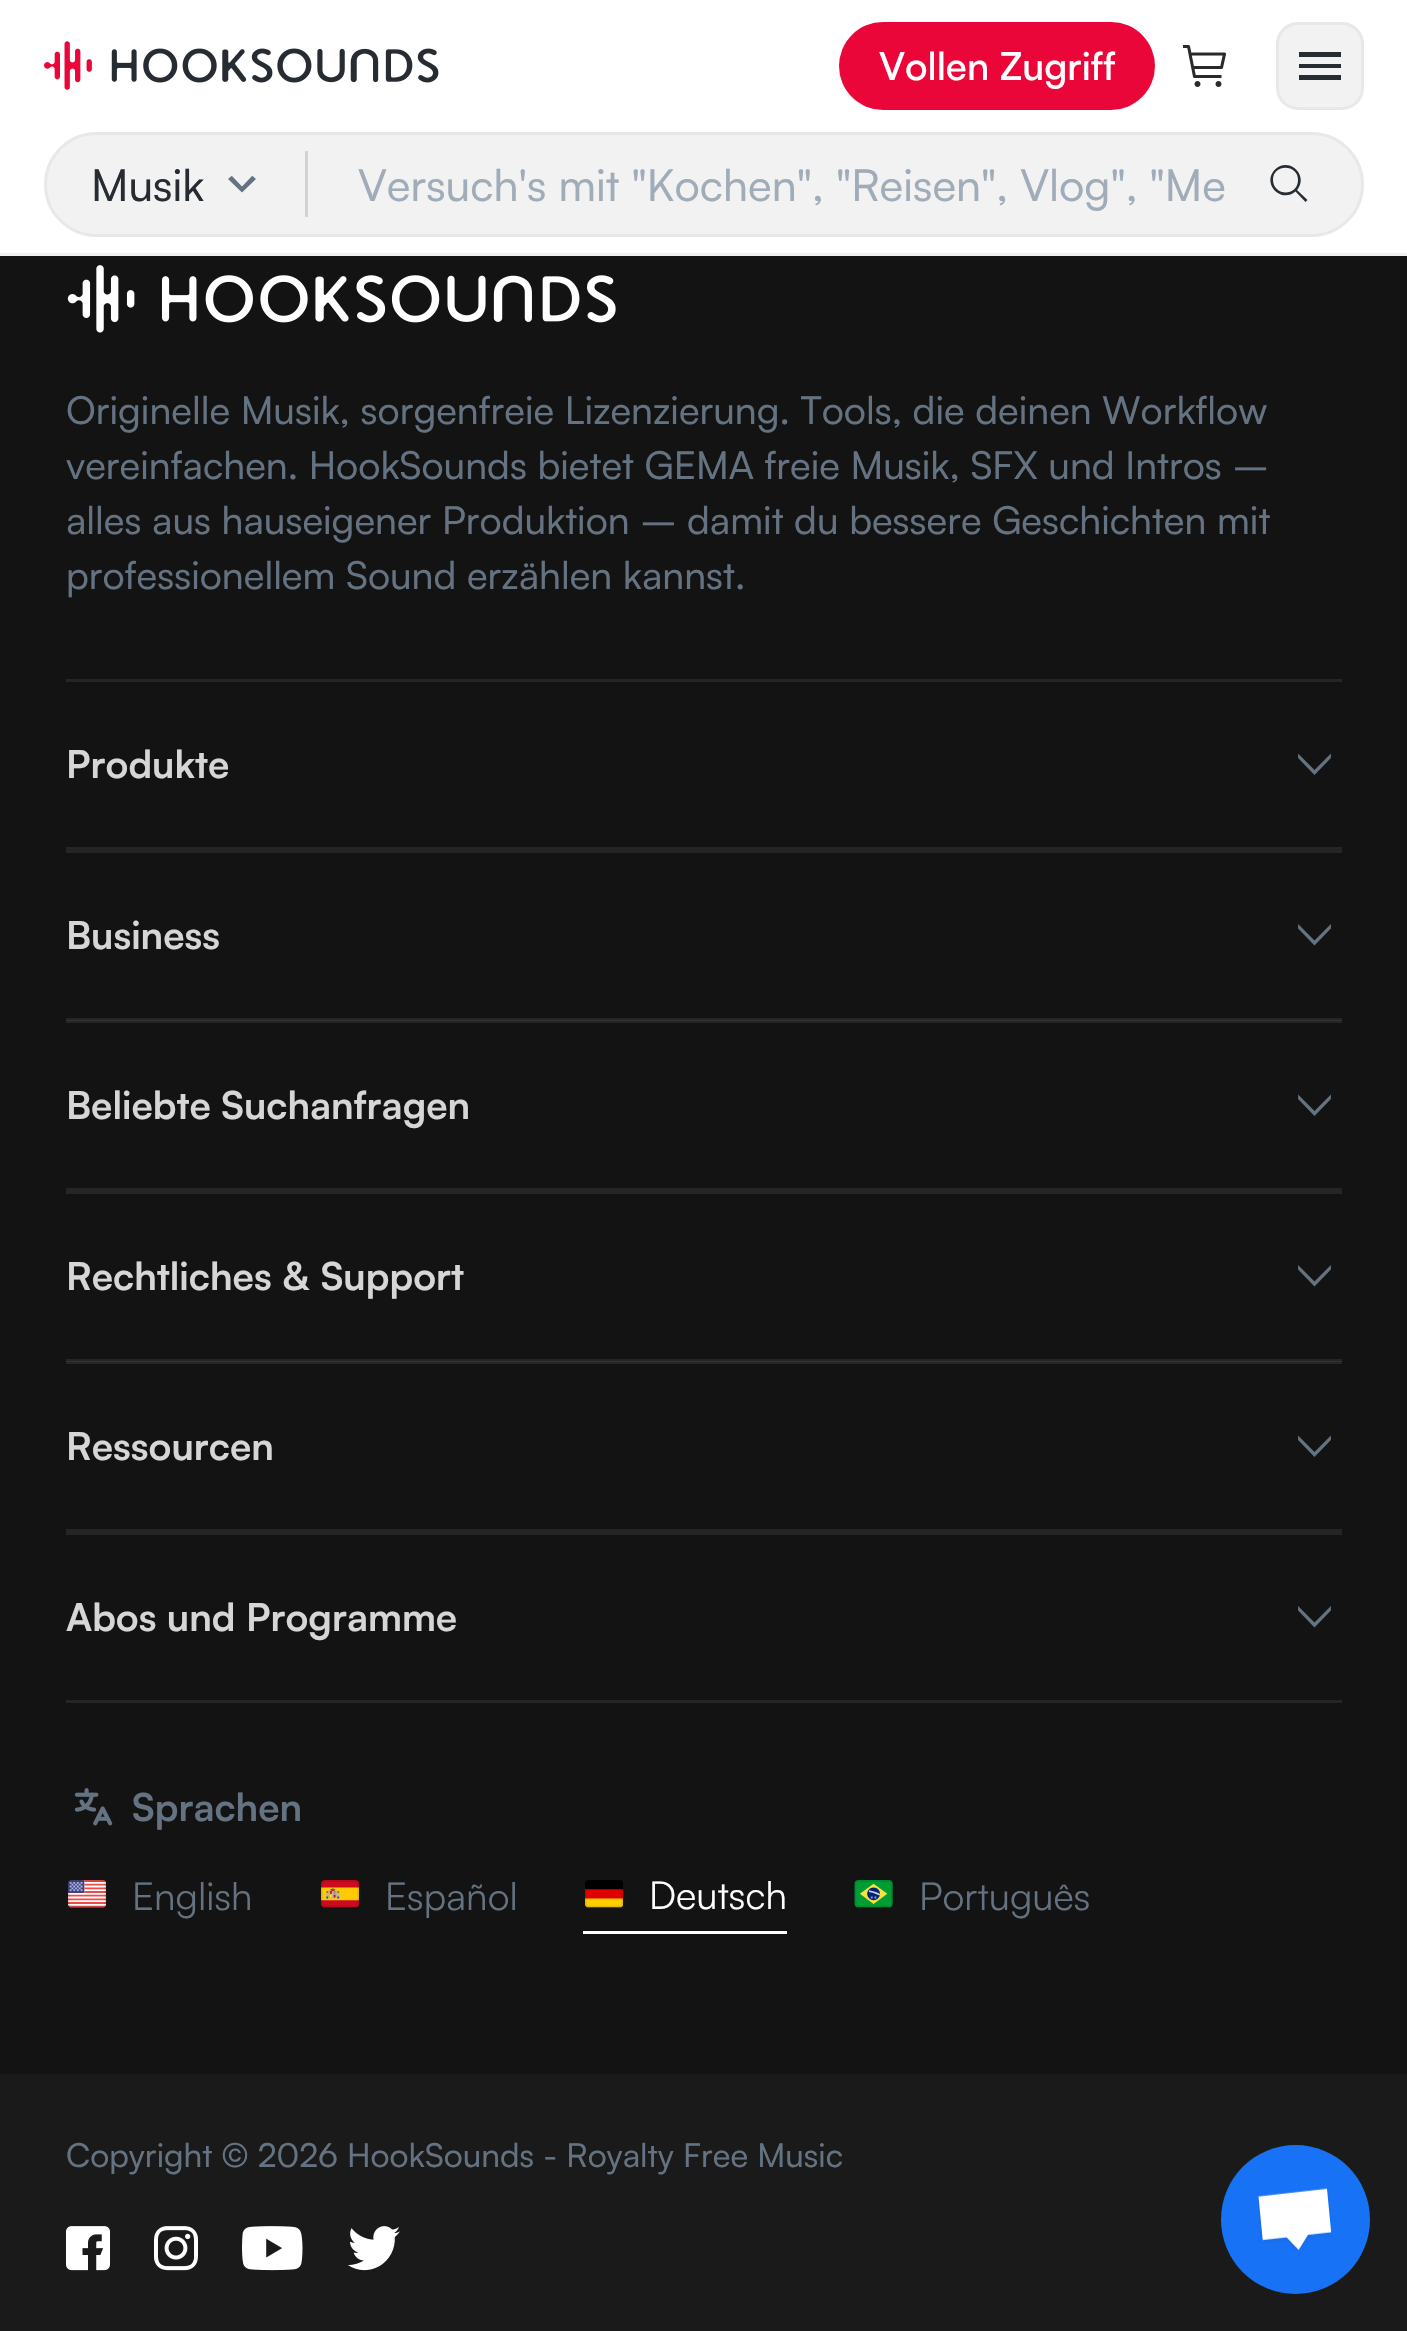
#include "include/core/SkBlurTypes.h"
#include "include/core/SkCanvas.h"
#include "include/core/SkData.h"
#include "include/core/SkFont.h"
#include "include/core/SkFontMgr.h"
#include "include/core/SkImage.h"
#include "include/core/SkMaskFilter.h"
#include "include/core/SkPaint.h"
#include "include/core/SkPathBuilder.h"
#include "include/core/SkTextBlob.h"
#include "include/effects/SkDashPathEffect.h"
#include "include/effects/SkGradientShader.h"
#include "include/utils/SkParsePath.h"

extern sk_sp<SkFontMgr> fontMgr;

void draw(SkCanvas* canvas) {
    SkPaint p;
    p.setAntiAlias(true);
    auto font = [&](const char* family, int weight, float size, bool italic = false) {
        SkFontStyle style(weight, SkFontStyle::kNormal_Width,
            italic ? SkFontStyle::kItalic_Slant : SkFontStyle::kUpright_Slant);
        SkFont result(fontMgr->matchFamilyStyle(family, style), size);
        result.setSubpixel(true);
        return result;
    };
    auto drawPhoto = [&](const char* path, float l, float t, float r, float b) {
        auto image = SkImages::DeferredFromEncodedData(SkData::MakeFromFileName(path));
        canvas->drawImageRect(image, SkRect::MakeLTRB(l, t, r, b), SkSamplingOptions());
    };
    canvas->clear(0xFF131313);
    p.setColor(0xFFFFFFFF);
    canvas->drawRect(SkRect::MakeLTRB(0, 0, 1407, 253), p);
    drawPhoto("media/1.png", 44, 41, 439, 90);
    p.setColor(0xFFEA0639);
    canvas->drawRoundRect(SkRect::MakeLTRB(839, 22, 1155, 110), 44, 44, p);
    auto font1 = font("Satoshi", 600, 38.5f);
    p.setColor(0xFFFFFFFF);
    canvas->drawString("Vollen Zugriff", 879, 80, font1, p);
    drawPhoto("media/2.png", 1183, 45, 1226, 87);
    p.setColor(0xFFF2F2F3);
    canvas->drawRoundRect(SkRect::MakeLTRB(1277.5f, 23.5f, 1362.5f, 108.5f), 20.5f, 20.5f, p);
    p.setStyle(SkPaint::kStroke_Style);
    p.setStrokeWidth(3);
    p.setColor(0xFFE7E8E9);
    canvas->drawRoundRect(SkRect::MakeLTRB(1277.5f, 23.5f, 1362.5f, 108.5f), 20.5f, 20.5f, p);
    p.setStyle(SkPaint::kFill_Style);
    p.setColor(0xFF272C32);
    canvas->drawPath(SkPathBuilder(SkPathFillType::kEvenOdd).moveTo(1299, 57).lineTo(1299, 52).lineTo(1341, 52).lineTo(1341, 57).close().moveTo(1299, 68).lineTo(1341, 68).lineTo(1341, 64).lineTo(1299, 64).close().moveTo(1299, 80).lineTo(1341, 80).lineTo(1341, 75).lineTo(1299, 75).close().detach(), p);
    p.setColor(0xFFF0F0F0);
    canvas->drawRect(SkRect::MakeLTRB(0, 253, 1407, 256), p);
    p.setColor(0xFFF2F2F3);
    canvas->drawRoundRect(SkRect::MakeLTRB(45.5f, 133.5f, 1362.5f, 235.5f), 51, 51, p);
    p.setStyle(SkPaint::kStroke_Style);
    p.setColor(0xFFE7E8E9);
    canvas->drawRoundRect(SkRect::MakeLTRB(45.5f, 133.5f, 1362.5f, 235.5f), 51, 51, p);
    auto font2 = font("Satoshi", 500, 44);
    p.setStyle(SkPaint::kFill_Style);
    p.setColor(0xFF272C32);
    canvas->drawString("Musik", 91, 201, font2, p);
    p.setColor(0xFF647281);
    canvas->drawPath(SkPathBuilder().moveTo(252.5f, 176).lineTo(256, 179).lineTo(242, 192.5f).lineTo(228, 179).lineTo(231.5f, 176).lineTo(232, 176).lineTo(242, 186.5f).lineTo(252, 176).close().detach(), p);
    p.setColor(0xFFD2D3D5);
    canvas->drawRect(SkRect::MakeLTRB(305, 151, 308, 217), p);
    p.setColor(0xFFA1ACB9);
    canvas->drawString("Versuch's mit \"Kochen\", \"Reisen\", Vlog\", \"Me", 358, 201, font2, p);
    p.setColor(0xFF272C32);
    canvas->drawPath(SkPathBuilder().moveTo(1307.5f, 200).lineTo(1297, 190).cubicTo(1309.5f, 175, 1288.5f, 156, 1275, 169.5f).cubicTo(1261.5f, 183, 1280.5f, 204, 1295.5f, 191.5f).lineTo(1305.5f, 202).close().moveTo(1273, 180).cubicTo(1273, 163.5f, 1298.5f, 164, 1298, 180.5f).cubicTo(1297.5f, 196.5f, 1273.5f, 196.5f, 1273, 180).close().detach(), p);
    p.setColor(0xFF252525);
    canvas->drawRect(SkRect::MakeLTRB(66, 1362, 1342, 1364), p);
    canvas->drawRect(SkRect::MakeLTRB(66, 1021, 1342, 1023), p);
    drawPhoto("media/3.png", 67, 265, 616, 333);
    auto font3 = font("Satoshi", 500, 38.5f);
    p.setColor(0xFF647281);
    {
        const struct { const char* s; float x, y; } items[] = {
            {"Originelle Musik, sorgenfreie Lizenzierung. Tools, die deinen Workflow", 66, 424},
            {"vereinfachen. HookSounds bietet GEMA freie Musik, SFX und Intros –", 66, 479},
            {"alles aus hauseigener Produktion – damit du bessere Geschichten mit", 66, 534},
            {"professionellem Sound erzählen kannst.", 66, 589},
        };
        for (auto [s, x, y] : items) {
            canvas->drawString(s, x, y, font3, p);
        }
    }
    p.setColor(0xFF252525);
    canvas->drawRect(SkRect::MakeLTRB(66, 679, 1342, 682), p);
    canvas->drawRect(SkRect::MakeLTRB(66, 847, 1342, 853), p);
    auto font4 = font("Satoshi", 700, 38.5f);
    p.setColor(0xFFD6D6D6);
    canvas->drawString("Produkte", 66, 778, font4, p);
    p.setStyle(SkPaint::kStroke_Style);
    p.setStrokeWidth(2.8f);
    p.setColor(0xFF647281);
    canvas->drawPath(SkPathBuilder().moveTo(1299.5f, 757.5f).lineTo(1299.5f, 757).lineTo(1314.5f, 772).lineTo(1329.5f, 757).lineTo(1329.5f, 757.5f).lineTo(1314.5f, 773).close().detach(), p);
    p.setStyle(SkPaint::kFill_Style);
    p.setColor(0xFF252525);
    canvas->drawRect(SkRect::MakeLTRB(66, 1018, 1342, 1020), p);
    p.setColor(0xFF333333);
    canvas->drawRect(SkRect::MakeLTRB(66, 1020, 1342, 1021), p);
    p.setColor(0xFFD6D6D6);
    canvas->drawString("Business", 66, 949, font4, p);
    p.setStyle(SkPaint::kStroke_Style);
    p.setColor(0xFF647281);
    canvas->drawPath(SkPathBuilder().moveTo(1299.5f, 928).lineTo(1299.5f, 927.5f).lineTo(1314.5f, 942.5f).lineTo(1329.5f, 927.5f).lineTo(1329.5f, 928).lineTo(1314.5f, 943.5f).close().detach(), p);
    p.setStyle(SkPaint::kFill_Style);
    p.setColor(0xFF252525);
    canvas->drawRect(SkRect::MakeLTRB(66, 1188, 1342, 1194), p);
    p.setColor(0xFFD6D6D6);
    canvas->drawString("Beliebte Suchanfragen", 66, 1119, font4, p);
    p.setStyle(SkPaint::kStroke_Style);
    p.setColor(0xFF647281);
    canvas->drawPath(SkPathBuilder().moveTo(1299.5f, 1098.5f).lineTo(1299.5f, 1098).lineTo(1314.5f, 1113).lineTo(1329.5f, 1098).lineTo(1329.5f, 1098.5f).lineTo(1314.5f, 1114).close().detach(), p);
    p.setStyle(SkPaint::kFill_Style);
    p.setColor(0xFF252525);
    canvas->drawRect(SkRect::MakeLTRB(66, 1359, 1342, 1361), p);
    p.setColor(0xFF333333);
    canvas->drawRect(SkRect::MakeLTRB(66, 1361, 1342, 1362), p);
    p.setColor(0xFFD6D6D6);
    canvas->drawString("Rechtliches & Support", 66, 1290, font4, p);
    p.setStyle(SkPaint::kStroke_Style);
    p.setColor(0xFF647281);
    canvas->drawPath(SkPathBuilder().moveTo(1299.5f, 1269).lineTo(1299.5f, 1268.5f).lineTo(1314.5f, 1283.5f).lineTo(1329.5f, 1268.5f).lineTo(1329.5f, 1269).lineTo(1314.5f, 1284.5f).close().detach(), p);
    p.setStyle(SkPaint::kFill_Style);
    p.setColor(0xFF252525);
    canvas->drawRect(SkRect::MakeLTRB(66, 1529, 1342, 1535), p);
    p.setColor(0xFFD6D6D6);
    canvas->drawString("Ressourcen", 66, 1460, font4, p);
    p.setStyle(SkPaint::kStroke_Style);
    p.setColor(0xFF647281);
    canvas->drawPath(SkPathBuilder().moveTo(1299.5f, 1439.5f).lineTo(1299.5f, 1439).lineTo(1314.5f, 1454).lineTo(1329.5f, 1439).lineTo(1329.5f, 1439.5f).lineTo(1314.5f, 1455).close().detach(), p);
    p.setStyle(SkPaint::kFill_Style);
    p.setColor(0xFF252525);
    canvas->drawRect(SkRect::MakeLTRB(66, 1700, 1342, 1703), p);
    p.setColor(0xFFD6D6D6);
    canvas->drawString("Abos und Programme", 66, 1631, font4, p);
    p.setStyle(SkPaint::kStroke_Style);
    p.setColor(0xFF647281);
    canvas->drawPath(SkPathBuilder().moveTo(1299.5f, 1610).lineTo(1299.5f, 1609.5f).lineTo(1314.5f, 1624.5f).lineTo(1329.5f, 1609.5f).lineTo(1329.5f, 1610).lineTo(1314.5f, 1625.5f).close().detach(), p);
    drawPhoto("media/4.png", 74, 1788, 113, 1826);
    p.setStyle(SkPaint::kFill_Style);
    canvas->drawString("Sprachen", 132, 1821, font4, p);
    drawPhoto("media/5.png", 68, 1880, 106, 1908);
    auto font5 = font("Satoshi", 400, 38.5f);
    canvas->drawString("English", 132, 1910, font5, p);
    drawPhoto("media/6.png", 321, 1880, 359, 1908);
    canvas->drawString("Español", 385, 1910, font5, p);
    p.setColor(0xFFFFFFFF);
    canvas->drawRect(SkRect::MakeLTRB(583, 1931, 787, 1934), p);
    drawPhoto("media/7.png", 585, 1880, 623, 1908);
    canvas->drawString("Deutsch", 649, 1909, font5, p);
    drawPhoto("media/8.png", 854, 1880, 893, 1908);
    p.setColor(0xFF647281);
    canvas->drawString("Português", 919, 1910, font5, p);
    p.setColor(0xFF1A1A1A);
    canvas->drawRect(SkRect::MakeLTRB(0, 2074, 1407, 2331), p);
    auto font6 = font("Satoshi", 500, 33);
    p.setColor(0xFF647281);
    canvas->drawString("Copyright © 2026 HookSounds - Royalty Free Music", 66, 2167, font6, p);
    drawPhoto("media/9.png", 66, 2226, 110, 2271);
    drawPhoto("media/10.png", 154, 2226, 198, 2271);
    drawPhoto("media/11.png", 242, 2226, 303, 2271);
    drawPhoto("media/12.png", 348, 2226, 400, 2271);
    p.setColor(0xFF1872F5);
    canvas->drawCircle(1295.5f, 2219.5f, 74.5f, p);
    drawPhoto("media/13.png", 1258, 2188, 1332, 2251);
}
